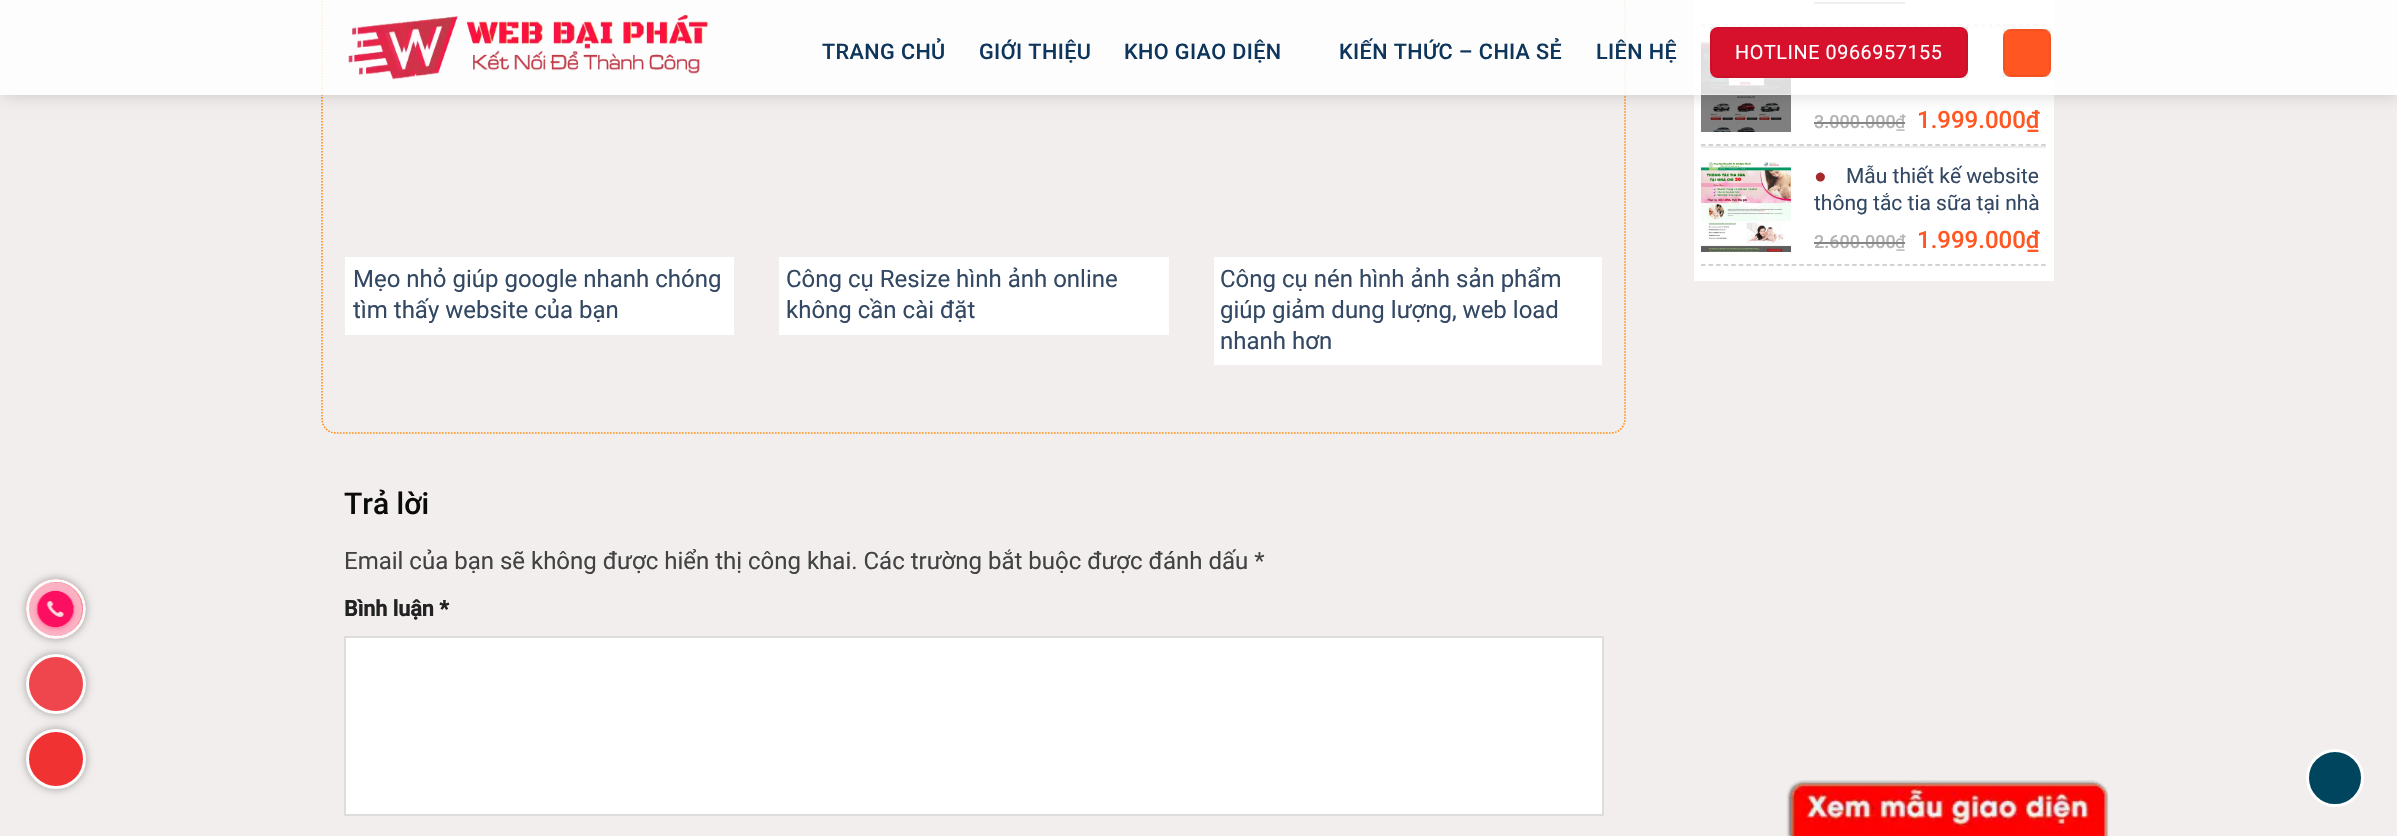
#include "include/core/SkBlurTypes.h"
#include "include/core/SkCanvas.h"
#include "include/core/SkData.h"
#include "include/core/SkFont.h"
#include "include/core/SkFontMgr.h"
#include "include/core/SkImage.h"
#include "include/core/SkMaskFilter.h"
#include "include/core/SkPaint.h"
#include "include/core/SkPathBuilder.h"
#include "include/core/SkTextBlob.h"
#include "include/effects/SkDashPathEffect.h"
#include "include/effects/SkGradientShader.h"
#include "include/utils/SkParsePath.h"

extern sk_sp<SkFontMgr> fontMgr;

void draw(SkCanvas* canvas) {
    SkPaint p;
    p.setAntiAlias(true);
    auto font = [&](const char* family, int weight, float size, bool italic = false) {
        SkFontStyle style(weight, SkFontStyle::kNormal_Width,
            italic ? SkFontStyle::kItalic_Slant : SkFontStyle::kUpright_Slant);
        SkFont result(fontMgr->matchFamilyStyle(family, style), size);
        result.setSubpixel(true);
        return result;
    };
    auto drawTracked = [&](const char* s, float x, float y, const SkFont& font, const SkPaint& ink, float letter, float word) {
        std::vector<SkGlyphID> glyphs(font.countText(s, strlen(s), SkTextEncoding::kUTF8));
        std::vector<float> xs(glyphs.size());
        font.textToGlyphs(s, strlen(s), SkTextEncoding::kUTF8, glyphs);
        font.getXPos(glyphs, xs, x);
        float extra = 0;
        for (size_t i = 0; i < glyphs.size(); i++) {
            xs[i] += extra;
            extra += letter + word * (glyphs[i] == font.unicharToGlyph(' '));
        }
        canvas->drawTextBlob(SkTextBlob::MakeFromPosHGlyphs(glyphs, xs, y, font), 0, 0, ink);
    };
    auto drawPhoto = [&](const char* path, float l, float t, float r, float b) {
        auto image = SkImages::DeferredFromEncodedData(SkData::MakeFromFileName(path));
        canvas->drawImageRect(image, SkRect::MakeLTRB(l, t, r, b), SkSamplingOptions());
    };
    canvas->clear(0xFFF2EEEE);
    p.setColor(0xFFFFFFFF);
    canvas->drawRect(SkRect::MakeLTRB(1694, 0, 2054, 281), p);
    p.setStyle(SkPaint::kStroke_Style);
    p.setStrokeWidth(1.5f);
    p.setColor(0xFFC4C4C4);
    p.setPathEffect(SkDashPathEffect::Make({{4.5f, 3.06f}}, 0));
    canvas->drawPath(SkPathBuilder().moveTo(1701, 25).lineTo(2046, 25).detach(), p);
    p.setPathEffect(nullptr);
    p.setStyle(SkPaint::kFill_Style);
    p.setColor(0xFF858585);
    canvas->drawRect(SkRect::MakeLTRB(1814, 2, 1905, 4), p);
    p.setColor(0xFFECECEC);
    canvas->drawRect(SkRect::MakeLTRB(1701, 26, 2046, 28), p);
    drawPhoto("media/2.png", 1701, 42, 1791, 132);
    p.setStyle(SkPaint::kStroke_Style);
    p.setColor(0xFFFF8800);
    p.setPathEffect(SkDashPathEffect::Make({{1.5f, 1.5f}}, 0));
    canvas->drawPath(SkPathBuilder().moveTo(336, -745).lineTo(1611, -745).cubicTo(1619, -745, 1625, -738.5f, 1625, -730.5f).lineTo(1625, 418.5f).cubicTo(1625, 426.5f, 1619, 433, 1611, 433).lineTo(336, 433).cubicTo(328, 433, 322, 426.5f, 322, 418.5f).lineTo(322, -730.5f).cubicTo(322, -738.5f, 328, -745, 336, -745).close().detach(), p);
    p.setPathEffect(nullptr);
    canvas->save();
    canvas->clipPath(SkPathBuilder(SkPathFillType::kEvenOdd).moveTo(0, 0).lineTo(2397, 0).lineTo(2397, 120).lineTo(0, 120).close().moveTo(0, 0).lineTo(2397, 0).lineTo(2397, 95).lineTo(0, 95).close().detach(), true);
    p.setStyle(SkPaint::kFill_Style);
    p.setColor(0x26000000);
    p.setMaskFilter(SkMaskFilter::MakeBlur(kNormal_SkBlurStyle, 7.5f));
    canvas->drawRect(SkRect::MakeLTRB(2, 2, 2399, 96), p);
    p.setMaskFilter(nullptr);
    canvas->restore();
    p.setColor(0xA3FFFFFF);
    canvas->drawRect(SkRect::MakeLTRB(0, 0, 2397, 95), p);
    canvas->drawRect(SkRect::MakeLTRB(0, 0, 2397, 95), p);
    drawPhoto("media/1.png", 348, 15, 709, 80);
    auto font1 = font("Roboto", 500, 21.6f);
    p.setColor(0xFF0E365C);
    {
        const struct { const char* s; float x, y; } items[] = {
            {"TRANG CHỦ", 822, 59},
            {"GIỚI THIỆU", 979, 59},
            {"KHO GIAO DIỆN", 1124, 59},
            {"KIẾN THỨC – CHIA SẺ", 1339, 59},
            {"LIÊN HỆ", 1596, 59},
        };
        for (auto [s, x, y] : items) {
            drawTracked(s, x, y, font1, p, 0.4f, 0);
        }
    }
    p.setColor(0xFFD7102C);
    canvas->drawRoundRect(SkRect::MakeLTRB(1710, 27, 1968, 78), 8, 8, p);
    p.setStyle(SkPaint::kStroke_Style);
    p.setStrokeWidth(2);
    p.setColor(0x0D000000);
    canvas->drawRect(SkRect::MakeLTRB(1711, 28, 1967, 77), p);
    auto font2 = font("Roboto", 400, 19.75f);
    p.setStyle(SkPaint::kFill_Style);
    p.setColor(0xFFFFFFFF);
    drawTracked("HOTLINE 0966957155", 1735, 59, font2, p, 0.6f, 0);
    p.setColor(0xFFFF5622);
    canvas->drawRoundRect(SkRect::MakeLTRB(2003, 29, 2051, 77), 8, 8, p);
    p.setStyle(SkPaint::kStroke_Style);
    p.setColor(0x0D000000);
    canvas->drawRect(SkRect::MakeLTRB(2004, 30, 2050, 76), p);
    p.setStrokeWidth(1.5f);
    p.setColor(0xFFC4C4C4);
    p.setPathEffect(SkDashPathEffect::Make({{4.5f, 3.06f}}, 0));
    canvas->drawPath(SkPathBuilder().moveTo(1701, 145).lineTo(2046, 145).detach(), p);
    p.setPathEffect(nullptr);
    auto font3 = font("Roboto", 500, 18);
    p.setStyle(SkPaint::kFill_Style);
    p.setColor(0xFFB3B3B3);
    canvas->drawString("3.000.000", 1814, 128, font3, p);
    auto font4 = font("Roboto", 400, 18);
    canvas->drawString("₫", 1895, 128, font4, p);
    p.setColor(0xFF858585);
    canvas->drawRect(SkRect::MakeLTRB(1814, 122, 1895, 124), p);
    canvas->drawRect(SkRect::MakeLTRB(1895, 122, 1905, 124), p);
    auto font5 = font("Roboto", 500, 24);
    p.setColor(0xFFFF5622);
    canvas->drawString("1.999.000₫", 1917, 128, font5, p);
    p.setColor(0xFFECECEC);
    canvas->drawRect(SkRect::MakeLTRB(1701, 146, 2046, 148), p);
    p.setStyle(SkPaint::kStroke_Style);
    p.setColor(0xFFC4C4C4);
    p.setPathEffect(SkDashPathEffect::Make({{4.5f, 3.06f}}, 0));
    canvas->drawPath(SkPathBuilder().moveTo(1701, 265).lineTo(2046, 265).detach(), p);
    p.setPathEffect(nullptr);
    drawPhoto("media/3.png", 1701, 162, 1791, 252);
    auto font6 = font("Liberation Sans", 400, 21);
    p.setStyle(SkPaint::kFill_Style);
    p.setColor(0xFFA52A2A);
    canvas->drawString("●", 1814, 183, font6, p);
    auto font7 = font("Roboto", 400, 21);
    p.setColor(0xFF334862);
    canvas->drawString("Mẫu thiết kế website", 1846, 183, font7, p);
    canvas->drawString("thông tắc tia sữa tại nhà", 1814, 210, font7, p);
    p.setColor(0xFFB3B3B3);
    canvas->drawString("2.600.000", 1814, 248, font3, p);
    canvas->drawString("₫", 1895, 248, font4, p);
    p.setColor(0xFF858585);
    canvas->drawRect(SkRect::MakeLTRB(1814, 242, 1895, 244), p);
    canvas->drawRect(SkRect::MakeLTRB(1895, 242, 1905, 244), p);
    p.setColor(0xFFFF5622);
    canvas->drawString("1.999.000₫", 1917, 248, font5, p);
    p.setColor(0xFFFFFFFF);
    canvas->drawRect(SkRect::MakeLTRB(345, 257, 734, 335), p);
    auto font8 = font("Roboto", 400, 24);
    p.setColor(0xFF334862);
    canvas->drawString("Mẹo nhỏ giúp google nhanh chóng", 353, 287, font8, p);
    canvas->drawString("tìm thấy website của bạn", 353, 318, font8, p);
    p.setColor(0xFFFFFFFF);
    canvas->drawRect(SkRect::MakeLTRB(779, 257, 1169, 335), p);
    p.setColor(0xFF334862);
    canvas->drawString("Công cụ Resize hình ảnh online", 786, 287, font8, p);
    canvas->drawString("không cần cài đặt", 786, 318, font8, p);
    p.setColor(0xFFFFFFFF);
    canvas->drawRect(SkRect::MakeLTRB(1214, 257, 1602, 365), p);
    p.setColor(0xFF334862);
    {
        const struct { const char* s; float x, y; } items[] = {
            {"Công cụ nén hình ảnh sản phẩm", 1220, 287},
            {"giúp giảm dung lượng, web load", 1220, 318},
            {"nhanh hơn", 1220, 349},
        };
        for (auto [s, x, y] : items) {
            canvas->drawString(s, x, y, font8, p);
        }
    }
    drawPhoto("media/4.png", 1786, 780, 2109, 836);
    auto font9 = font("Roboto", 500, 30);
    p.setColor(0xFF0A0A0A);
    canvas->drawString("Trả lời", 344, 514, font9, p);
    p.setColor(0xFF424242);
    canvas->drawString("Email của bạn sẽ không được hiển thị công khai. Các trường bắt buộc được đánh dấu *", 344, 569, font8, p);
    auto font10 = font("Roboto", 700, 21.6f);
    p.setColor(0xFF222222);
    canvas->drawString("Bình luận *", 344, 616, font10, p);
    p.setColor(0xFFFFFFFF);
    canvas->drawRect(SkRect::MakeLTRB(345, 637, 1603, 815), p);
    p.setStyle(SkPaint::kStroke_Style);
    p.setStrokeWidth(2);
    p.setColor(0xFFDDDDDD);
    canvas->drawRect(SkRect::MakeLTRB(345, 637, 1603, 815), p);
    p.setStyle(SkPaint::kFill_Style);
    p.setColor(0xFF9D9C9C);
    p.setMaskFilter(SkMaskFilter::MakeBlur(kNormal_SkBlurStyle, 4));
    canvas->drawRoundRect(SkRect::MakeLTRB(26, 579, 86, 639), 30, 30, p);
    p.setMaskFilter(nullptr);
    p.setColor(0xFFEE464C);
    canvas->drawCircle(56, 609, 30, p);
    drawPhoto("media/5.png", 29, 582, 83, 636);
    p.setStyle(SkPaint::kStroke_Style);
    p.setStrokeWidth(3);
    p.setColor(0xFFFCFCFC);
    canvas->drawCircle(56, 609, 28.5f, p);
    p.setStyle(SkPaint::kFill_Style);
    p.setColor(0xFF9D9C9C);
    p.setMaskFilter(SkMaskFilter::MakeBlur(kNormal_SkBlurStyle, 4));
    canvas->drawRoundRect(SkRect::MakeLTRB(26, 654, 86, 714), 30, 30, p);
    p.setMaskFilter(nullptr);
    p.setColor(0xFFEE464C);
    canvas->drawCircle(56, 684, 28.5f, p);
    p.setStyle(SkPaint::kStroke_Style);
    p.setColor(0xFFFCFCFC);
    canvas->drawCircle(56, 684, 28.5f, p);
    p.setStyle(SkPaint::kFill_Style);
    p.setColor(0xFF9D9C9C);
    p.setMaskFilter(SkMaskFilter::MakeBlur(kNormal_SkBlurStyle, 4));
    canvas->drawRoundRect(SkRect::MakeLTRB(26, 729, 86, 789), 30, 30, p);
    p.setMaskFilter(nullptr);
    p.setColor(0xFFF03232);
    canvas->drawCircle(56, 759, 28.5f, p);
    p.setStyle(SkPaint::kStroke_Style);
    p.setColor(0xFFFCFCFC);
    canvas->drawCircle(56, 759, 28.5f, p);
    p.setStyle(SkPaint::kFill_Style);
    p.setColor(0xFF00455E);
    canvas->drawCircle(2335, 778, 27.5f, p);
    p.setStyle(SkPaint::kStroke_Style);
    p.setColor(0xFFFFFFFF);
    canvas->drawCircle(2335, 778, 27.5f, p);
}
